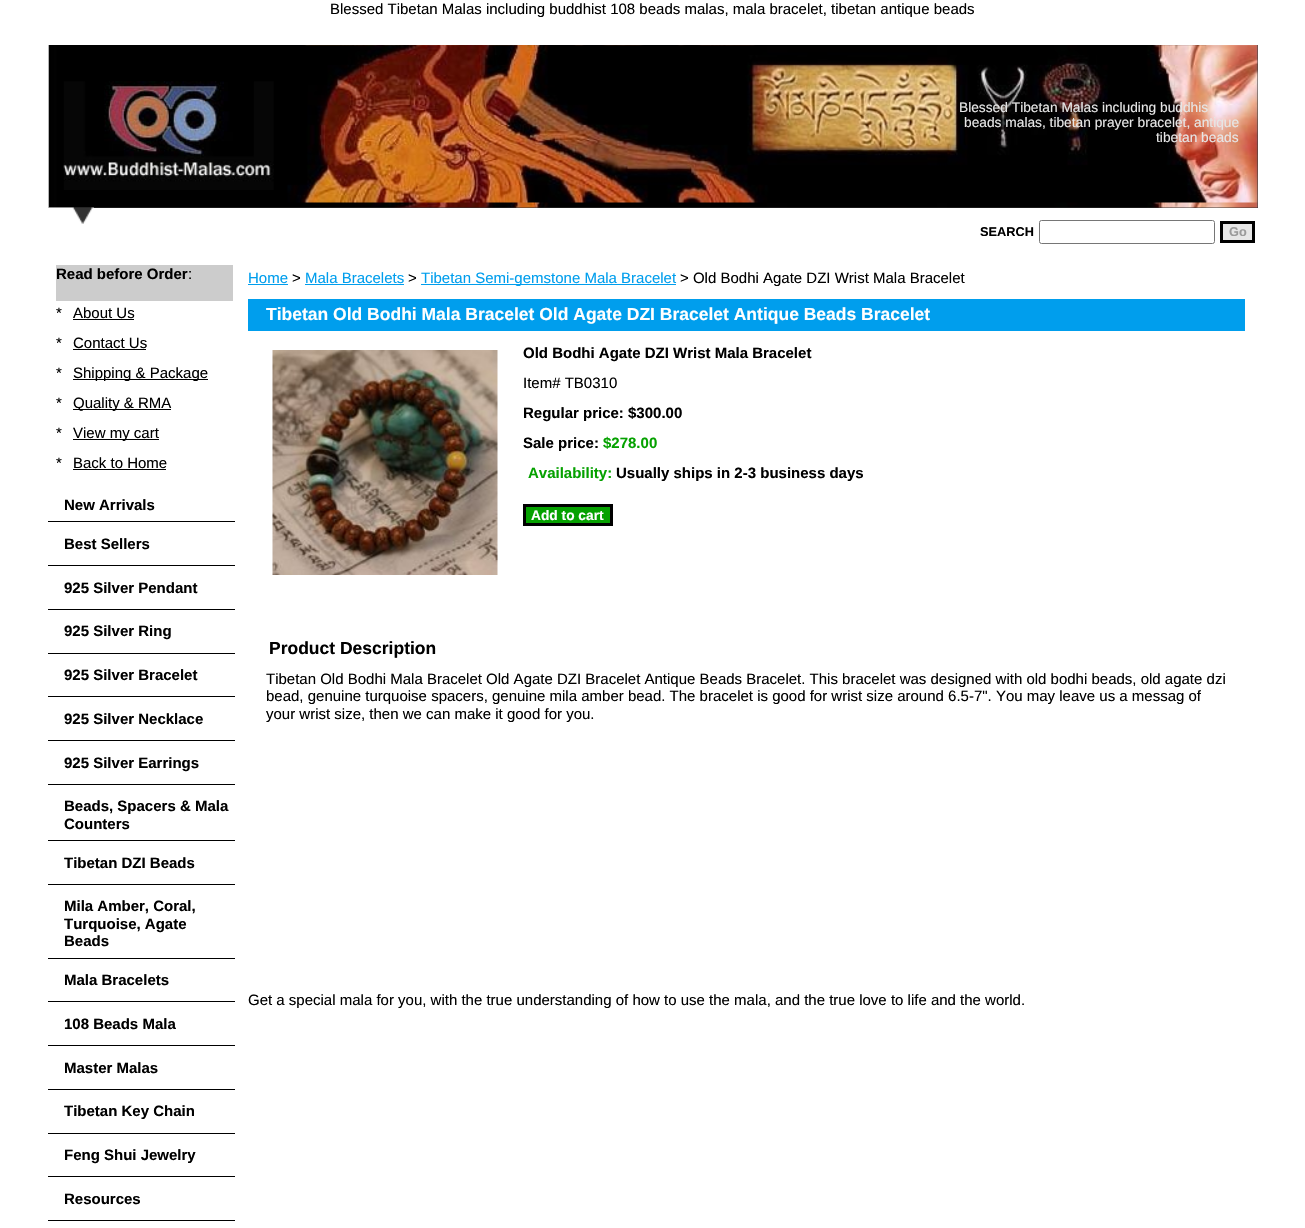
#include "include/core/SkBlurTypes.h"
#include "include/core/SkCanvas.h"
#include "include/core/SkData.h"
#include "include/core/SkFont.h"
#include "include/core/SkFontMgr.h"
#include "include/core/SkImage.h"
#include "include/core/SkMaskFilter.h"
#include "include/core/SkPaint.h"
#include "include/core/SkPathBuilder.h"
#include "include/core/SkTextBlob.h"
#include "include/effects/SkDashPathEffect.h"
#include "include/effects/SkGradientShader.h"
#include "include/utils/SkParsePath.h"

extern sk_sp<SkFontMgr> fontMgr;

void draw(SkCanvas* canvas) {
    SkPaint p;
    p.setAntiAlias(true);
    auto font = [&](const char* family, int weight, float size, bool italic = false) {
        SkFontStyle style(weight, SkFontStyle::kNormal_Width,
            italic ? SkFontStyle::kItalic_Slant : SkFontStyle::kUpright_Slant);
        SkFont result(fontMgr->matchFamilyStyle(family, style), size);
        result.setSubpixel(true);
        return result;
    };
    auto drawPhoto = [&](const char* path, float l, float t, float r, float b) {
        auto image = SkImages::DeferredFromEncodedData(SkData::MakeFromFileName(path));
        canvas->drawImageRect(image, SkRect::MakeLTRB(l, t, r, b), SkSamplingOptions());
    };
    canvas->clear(0xFFFFFFFF);
    auto font1 = font("Liberation Sans", 400, 15);
    p.setColor(0xFF000000);
    canvas->drawString("Blessed Tibetan Malas including buddhist 108 beads malas, mala bracelet, tibetan antique beads", 330, 14, font1, p);
    p.setColor(0xFF333333);
    canvas->drawRect(SkRect::MakeLTRB(48, 45, 1258, 208), p);
    drawPhoto("media/1.png", 48, 45, 1258, 208);
    drawPhoto("media/2.png", 63, 81, 274, 190);
    auto font2 = font("Liberation Sans", 400, 13.75f);
    p.setColor(0xFFE6E6E6);
    {
        const struct { const char* s; float x, y; } items[] = {
            {"Blessed Tibetan Malas including buddhis", 959, 112},
            {"beads malas, tibetan prayer bracelet, antique", 964, 127},
            {"tibetan beads", 1156, 142},
        };
        for (auto [s, x, y] : items) {
            canvas->drawString(s, x, y, font2, p);
        }
    }
    drawPhoto("media/3.png", 48, 207, 94, 224);
    auto font3 = font("Liberation Sans", 700, 12.75f);
    p.setColor(0xFF000000);
    canvas->drawString("SEARCH", 980, 236, font3, p);
    p.setStyle(SkPaint::kStroke_Style);
    p.setStrokeWidth(1);
    p.setColor(0xFF767676);
    canvas->drawRoundRect(SkRect::MakeLTRB(1039.5f, 220.5f, 1214.5f, 243.5f), 2, 2, p);
    p.setStyle(SkPaint::kFill_Style);
    p.setColor(0xFFE6E6E6);
    canvas->drawRect(SkRect::MakeLTRB(1221.5f, 222.5f, 1253.5f, 241.5f), p);
    p.setStyle(SkPaint::kStroke_Style);
    p.setStrokeWidth(3);
    p.setColor(0xFF000000);
    canvas->drawRect(SkRect::MakeLTRB(1221.5f, 222.5f, 1253.5f, 241.5f), p);
    p.setStyle(SkPaint::kFill_Style);
    p.setColor(0xFF9A9A9A);
    canvas->drawString("Go", 1229, 236, font3, p);
    p.setColor(0xFFCCCCCC);
    canvas->drawRect(SkRect::MakeLTRB(56, 265, 233, 301), p);
    auto font4 = font("Liberation Sans", 700, 15);
    p.setColor(0xFF000000);
    canvas->drawString("Read before Order", 56, 279, font4, p);
    {
        const struct { const char* s; float x, y; } items[] = {
            {":", 188, 279},
            {"*", 56, 318},
            {"About Us", 73, 318},
        };
        for (auto [s, x, y] : items) {
            canvas->drawString(s, x, y, font1, p);
        }
    }
    canvas->drawRect(SkRect::MakeLTRB(73, 319, 134, 320), p);
    canvas->drawString("*", 56, 348, font1, p);
    canvas->drawString("Contact Us", 73, 348, font1, p);
    canvas->drawRect(SkRect::MakeLTRB(73, 349, 146, 350), p);
    canvas->drawString("*", 56, 378, font1, p);
    canvas->drawRect(SkRect::MakeLTRB(73, 379, 208, 380), p);
    canvas->drawString("Shipping & Package", 73, 378, font1, p);
    canvas->drawString("*", 56, 408, font1, p);
    canvas->drawRect(SkRect::MakeLTRB(73, 409, 171, 410), p);
    canvas->drawString("Quality & RMA", 73, 408, font1, p);
    canvas->drawString("*", 56, 438, font1, p);
    canvas->drawRect(SkRect::MakeLTRB(73, 439, 159, 440), p);
    {
        const struct { const char* s; float x, y; } items[] = {
            {"View my cart", 73, 438},
            {"*", 56, 468},
            {"Back to Home", 73, 468},
        };
        for (auto [s, x, y] : items) {
            canvas->drawString(s, x, y, font1, p);
        }
    }
    canvas->drawRect(SkRect::MakeLTRB(73, 469, 166, 470), p);
    canvas->drawRect(SkRect::MakeLTRB(48, 521, 235, 522), p);
    canvas->drawString("New Arrivals", 64, 510, font4, p);
    canvas->drawRect(SkRect::MakeLTRB(48, 565, 235, 566), p);
    canvas->drawString("Best Sellers", 64, 549, font4, p);
    canvas->drawRect(SkRect::MakeLTRB(48, 609, 235, 610), p);
    canvas->drawString("925 Silver Pendant", 64, 593, font4, p);
    canvas->drawRect(SkRect::MakeLTRB(48, 653, 235, 654), p);
    canvas->drawString("925 Silver Ring", 64, 636, font4, p);
    canvas->drawRect(SkRect::MakeLTRB(48, 696, 235, 697), p);
    canvas->drawString("925 Silver Bracelet", 64, 680, font4, p);
    canvas->drawRect(SkRect::MakeLTRB(48, 740, 235, 741), p);
    canvas->drawString("925 Silver Necklace", 64, 724, font4, p);
    canvas->drawRect(SkRect::MakeLTRB(48, 784, 235, 785), p);
    canvas->drawString("925 Silver Earrings", 64, 768, font4, p);
    canvas->drawRect(SkRect::MakeLTRB(48, 840, 235, 841), p);
    canvas->drawString("Beads, Spacers & Mala", 64, 811, font4, p);
    canvas->drawString("Counters", 64, 829, font4, p);
    canvas->drawRect(SkRect::MakeLTRB(48, 884, 235, 885), p);
    canvas->drawString("Tibetan DZI Beads", 64, 868, font4, p);
    canvas->drawRect(SkRect::MakeLTRB(48, 958, 235, 959), p);
    {
        const struct { const char* s; float x, y; } items[] = {
            {"Mila Amber, Coral,", 64, 911},
            {"Turquoise, Agate", 64, 929},
            {"Beads", 64, 946},
        };
        for (auto [s, x, y] : items) {
            canvas->drawString(s, x, y, font4, p);
        }
    }
    canvas->drawRect(SkRect::MakeLTRB(48, 1001, 235, 1002), p);
    canvas->drawString("Mala Bracelets", 64, 985, font4, p);
    canvas->drawRect(SkRect::MakeLTRB(48, 1045, 235, 1046), p);
    canvas->drawString("108 Beads Mala", 64, 1029, font4, p);
    canvas->drawRect(SkRect::MakeLTRB(48, 1089, 235, 1090), p);
    canvas->drawString("Master Malas", 64, 1073, font4, p);
    canvas->drawRect(SkRect::MakeLTRB(48, 1133, 235, 1134), p);
    canvas->drawString("Tibetan Key Chain", 64, 1116, font4, p);
    canvas->drawRect(SkRect::MakeLTRB(48, 1176, 235, 1177), p);
    canvas->drawString("Feng Shui Jewelry", 64, 1160, font4, p);
    canvas->drawRect(SkRect::MakeLTRB(48, 1220, 235, 1221), p);
    canvas->drawString("Resources", 64, 1204, font4, p);
    p.setColor(0xFF009EED);
    canvas->drawString("Home", 248, 283, font1, p);
    canvas->drawRect(SkRect::MakeLTRB(248, 284, 288, 285), p);
    p.setColor(0xFF000000);
    canvas->drawString(">", 292, 283, font1, p);
    p.setColor(0xFF009EED);
    canvas->drawString("Mala Bracelets", 305, 283, font1, p);
    canvas->drawRect(SkRect::MakeLTRB(305, 284, 404, 285), p);
    p.setColor(0xFF000000);
    canvas->drawString(">", 408, 283, font1, p);
    p.setColor(0xFF009EED);
    canvas->drawRect(SkRect::MakeLTRB(421, 284, 676, 285), p);
    canvas->drawString("Tibetan Semi-gemstone Mala Bracelet", 421, 283, font1, p);
    p.setColor(0xFF000000);
    canvas->drawString("> Old Bodhi Agate DZI Wrist Mala Bracelet", 680, 283, font1, p);
    p.setColor(0xFF009EED);
    canvas->drawRect(SkRect::MakeLTRB(248, 299, 1245, 331), p);
    auto font5 = font("Liberation Sans", 700, 17.5f);
    p.setColor(0xFFFFFFFF);
    canvas->drawString("Tibetan Old Bodhi Mala Bracelet Old Agate DZI Bracelet Antique Beads Bracelet", 266, 320, font5, p);
    drawPhoto("media/4.png", 272, 350, 498, 575);
    p.setColor(0xFF000000);
    canvas->drawString("Old Bodhi Agate DZI Wrist Mala Bracelet", 523, 358, font4, p);
    canvas->drawString("Item# TB0310", 523, 388, font1, p);
    canvas->drawString("Regular price: $300.00", 523, 418, font4, p);
    canvas->drawString("Sale price:", 523, 448, font4, p);
    p.setColor(0xFF05A100);
    canvas->drawString("$278.00", 603, 448, font4, p);
    canvas->drawString("Availability:", 528, 478, font4, p);
    p.setColor(0xFF000000);
    canvas->drawString("Usually ships in 2-3 business days", 616, 478, font4, p);
    p.setColor(0xFF05A100);
    canvas->drawRect(SkRect::MakeLTRB(524.5f, 505.5f, 611.5f, 524.5f), p);
    p.setStyle(SkPaint::kStroke_Style);
    p.setColor(0xFF000000);
    canvas->drawRect(SkRect::MakeLTRB(524.5f, 505.5f, 611.5f, 524.5f), p);
    auto font6 = font("Liberation Sans", 700, 13.75f);
    p.setStyle(SkPaint::kFill_Style);
    p.setColor(0xFFFFFFFF);
    canvas->drawString("Add to cart", 531, 520, font6, p);
    p.setColor(0xFF000000);
    canvas->drawString("Product Description", 269, 654, font5, p);
    {
        const struct { const char* s; float x, y; } items[] = {
            {"Tibetan Old Bodhi Mala Bracelet Old Agate DZI Bracelet Antique Beads Bracelet. This bracelet was designed with old bodhi beads, old agate dzi", 266, 684},
            {"bead, genuine turquoise spacers, genuine mila amber bead. The bracelet is good for wrist size around 6.5-7\". You may leave us a messag of", 266, 701},
            {"your wrist size, then we can make it good for you.", 266, 719},
            {"Get a special mala for you, with the true understanding of how to use the mala, and the true love to life and the world.", 248, 1005},
        };
        for (auto [s, x, y] : items) {
            canvas->drawString(s, x, y, font1, p);
        }
    }
}
